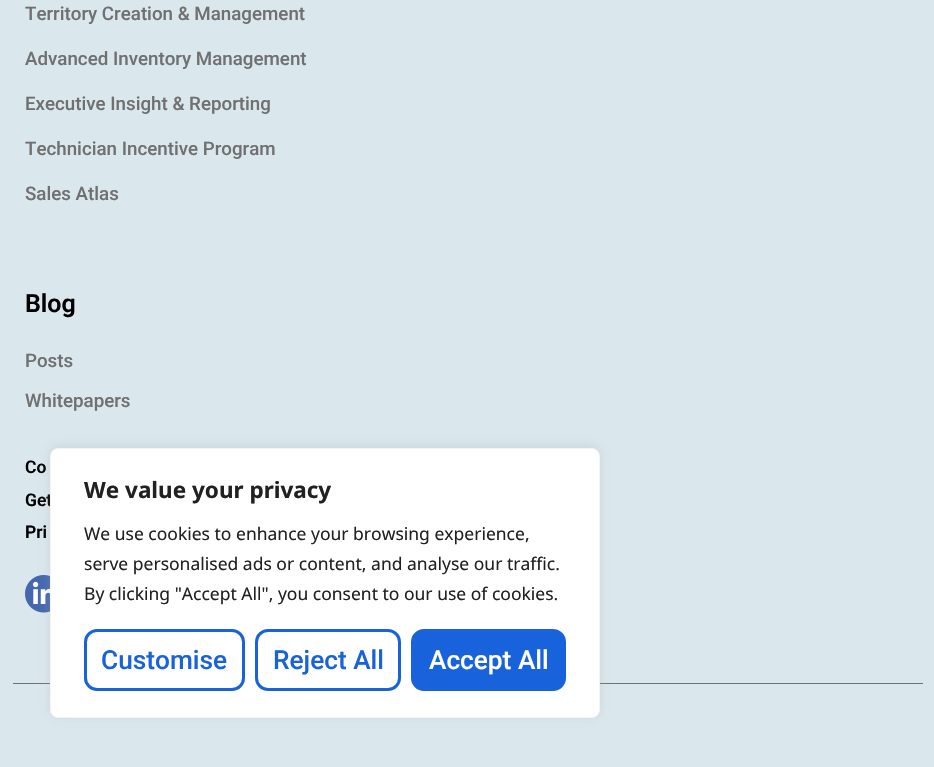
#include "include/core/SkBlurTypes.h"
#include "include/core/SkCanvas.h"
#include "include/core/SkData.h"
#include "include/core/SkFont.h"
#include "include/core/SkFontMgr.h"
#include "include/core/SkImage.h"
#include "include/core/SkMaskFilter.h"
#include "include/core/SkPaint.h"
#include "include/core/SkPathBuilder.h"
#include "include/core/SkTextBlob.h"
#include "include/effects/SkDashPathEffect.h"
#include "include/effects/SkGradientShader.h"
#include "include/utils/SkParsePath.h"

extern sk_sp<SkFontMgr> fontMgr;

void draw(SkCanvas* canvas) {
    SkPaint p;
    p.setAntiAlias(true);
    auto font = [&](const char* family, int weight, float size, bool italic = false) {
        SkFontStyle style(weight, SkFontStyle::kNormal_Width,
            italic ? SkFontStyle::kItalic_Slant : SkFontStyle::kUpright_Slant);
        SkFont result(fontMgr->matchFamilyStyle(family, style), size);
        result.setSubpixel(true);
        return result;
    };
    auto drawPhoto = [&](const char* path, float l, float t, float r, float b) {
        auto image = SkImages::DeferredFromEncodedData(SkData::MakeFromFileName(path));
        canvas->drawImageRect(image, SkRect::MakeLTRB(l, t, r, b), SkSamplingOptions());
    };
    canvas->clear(0xFFDAE7ED);
    auto font1 = font("Roboto", 500, 18.75f);
    p.setColor(0xFF707070);
    {
        const struct { const char* s; float x, y; } items[] = {
            {"Territory Creation & Management", 25, 20},
            {"Advanced Inventory Management", 25, 65},
            {"Executive Insight & Reporting", 25, 110},
            {"Technician Incentive Program", 25, 155},
            {"Sales Atlas", 25, 200},
        };
        for (auto [s, x, y] : items) {
            canvas->drawString(s, x, y, font1, p);
        }
    }
    auto font2 = font("Roboto", 600, 25);
    p.setColor(0xFF000000);
    canvas->drawString("Blog", 25, 312, font2, p);
    p.setColor(0xFF707070);
    canvas->drawString("Posts", 25, 367, font1, p);
    canvas->drawString("Whitepapers", 25, 407, font1, p);
    auto font3 = font("Roboto", 600, 17.5f);
    p.setColor(0xFF000000);
    {
        const struct { const char* s; float x, y; } items[] = {
            {"Co", 25, 473},
            {"Get", 25, 506},
            {"Pri", 25, 538},
        };
        for (auto [s, x, y] : items) {
            canvas->drawString(s, x, y, font3, p);
        }
    }
    drawPhoto("media/1.png", 25, 575, 50, 613);
    p.setColor(0xFF707070);
    canvas->drawRect(SkRect::MakeLTRB(13, 683, 923, 684), p);
    p.setColor(0x4DACABAB);
    p.setMaskFilter(SkMaskFilter::MakeBlur(kNormal_SkBlurStyle, 6));
    canvas->drawRoundRect(SkRect::MakeLTRB(50, 446, 600, 716), 8, 8, p);
    p.setMaskFilter(nullptr);
    p.setColor(0xFFFFFFFF);
    canvas->drawRoundRect(SkRect::MakeLTRB(50.5f, 448.5f, 599.5f, 717.5f), 7.5f, 7.5f, p);
    p.setStyle(SkPaint::kStroke_Style);
    p.setStrokeWidth(1);
    p.setColor(0xFFF4F4F4);
    canvas->drawRoundRect(SkRect::MakeLTRB(50.5f, 448.5f, 599.5f, 717.5f), 7.5f, 7.5f, p);
    auto font4 = font("Noto Sans", 700, 22.5f);
    p.setStyle(SkPaint::kFill_Style);
    p.setColor(0xFF212121);
    canvas->drawString("We value your privacy", 84, 498, font4, p);
    auto font5 = font("Noto Sans", 400, 17.5f);
    {
        const struct { const char* s; float x, y; } items[] = {
            {"We use cookies to enhance your browsing experience,", 84, 540},
            {"serve personalised ads or content, and analyse our traffic.", 84, 570},
            {"By clicking \"Accept All\", you consent to our use of cookies.", 84, 600},
        };
        for (auto [s, x, y] : items) {
            canvas->drawString(s, x, y, font5, p);
        }
    }
    p.setStyle(SkPaint::kStroke_Style);
    p.setStrokeWidth(3);
    p.setColor(0xFF1863DC);
    canvas->drawRoundRect(SkRect::MakeLTRB(85.5f, 630.5f, 243.5f, 689.5f), 11.5f, 11.5f, p);
    auto font6 = font("Roboto", 500, 26.25f);
    p.setStyle(SkPaint::kFill_Style);
    canvas->drawString("Customise", 101, 669, font6, p);
    p.setStyle(SkPaint::kStroke_Style);
    canvas->drawRoundRect(SkRect::MakeLTRB(256.5f, 630.5f, 399.5f, 689.5f), 11.5f, 11.5f, p);
    p.setStyle(SkPaint::kFill_Style);
    canvas->drawString("Reject All", 273, 669, font6, p);
    canvas->drawRoundRect(SkRect::MakeLTRB(412.5f, 630.5f, 564.5f, 689.5f), 11.5f, 11.5f, p);
    p.setStyle(SkPaint::kStroke_Style);
    canvas->drawRoundRect(SkRect::MakeLTRB(412.5f, 630.5f, 564.5f, 689.5f), 11.5f, 11.5f, p);
    p.setStyle(SkPaint::kFill_Style);
    p.setColor(0xFFFFFFFF);
    canvas->drawString("Accept All", 429, 669, font6, p);
}
